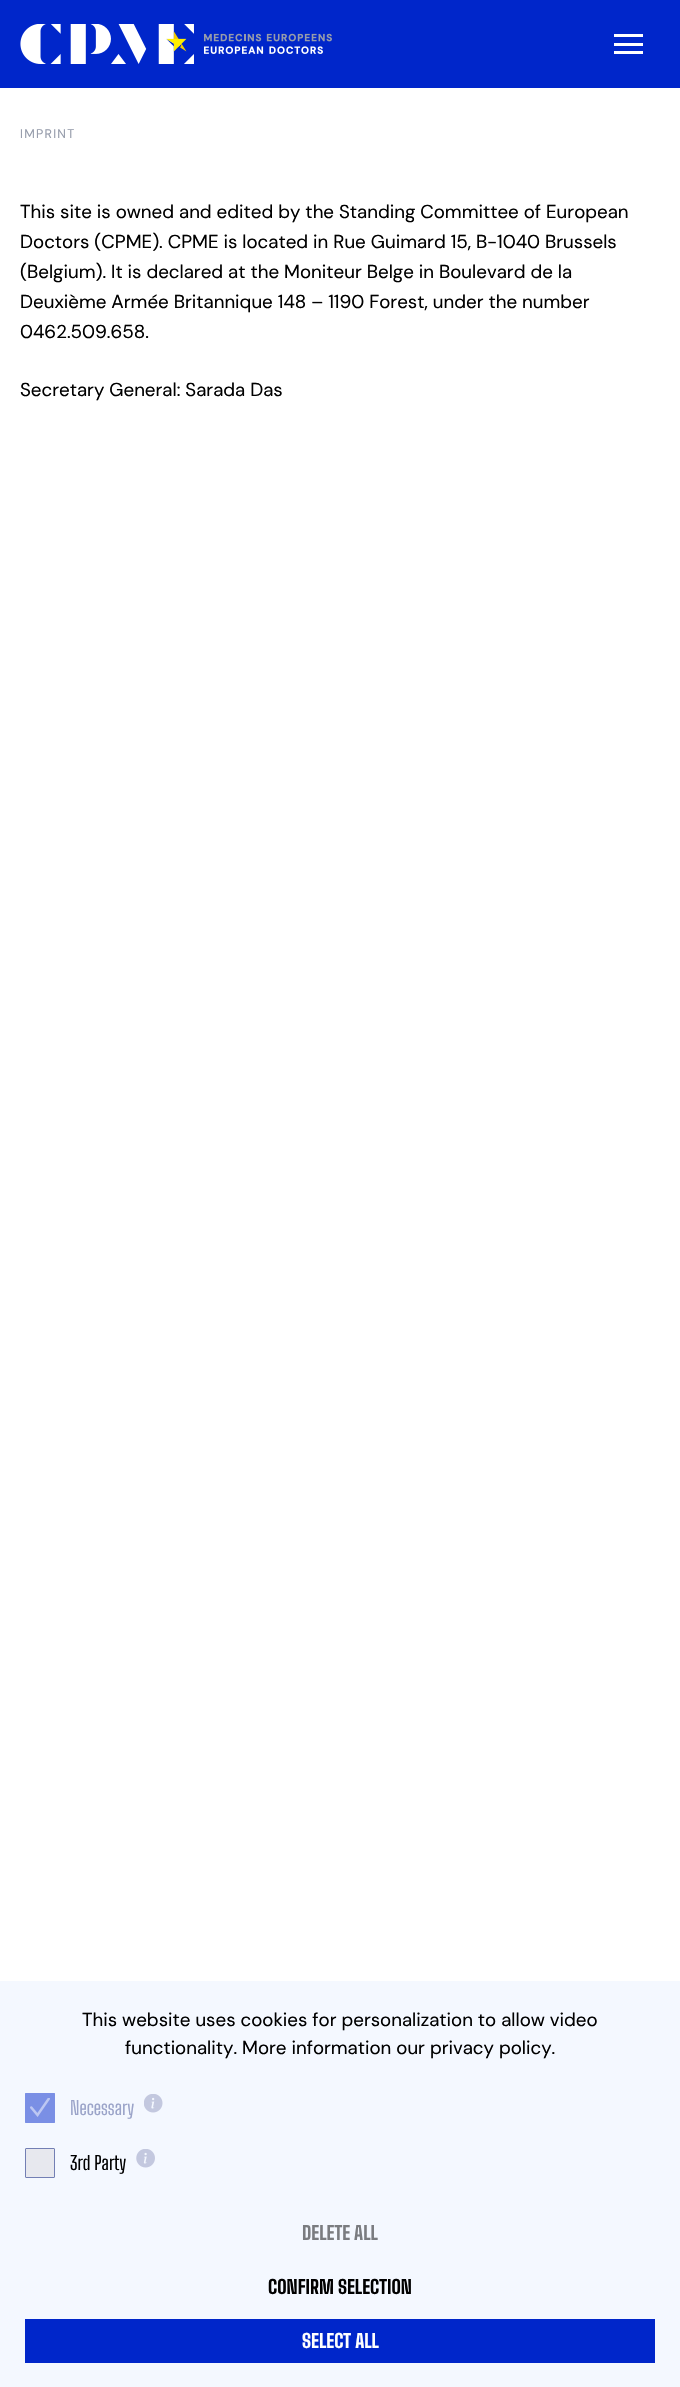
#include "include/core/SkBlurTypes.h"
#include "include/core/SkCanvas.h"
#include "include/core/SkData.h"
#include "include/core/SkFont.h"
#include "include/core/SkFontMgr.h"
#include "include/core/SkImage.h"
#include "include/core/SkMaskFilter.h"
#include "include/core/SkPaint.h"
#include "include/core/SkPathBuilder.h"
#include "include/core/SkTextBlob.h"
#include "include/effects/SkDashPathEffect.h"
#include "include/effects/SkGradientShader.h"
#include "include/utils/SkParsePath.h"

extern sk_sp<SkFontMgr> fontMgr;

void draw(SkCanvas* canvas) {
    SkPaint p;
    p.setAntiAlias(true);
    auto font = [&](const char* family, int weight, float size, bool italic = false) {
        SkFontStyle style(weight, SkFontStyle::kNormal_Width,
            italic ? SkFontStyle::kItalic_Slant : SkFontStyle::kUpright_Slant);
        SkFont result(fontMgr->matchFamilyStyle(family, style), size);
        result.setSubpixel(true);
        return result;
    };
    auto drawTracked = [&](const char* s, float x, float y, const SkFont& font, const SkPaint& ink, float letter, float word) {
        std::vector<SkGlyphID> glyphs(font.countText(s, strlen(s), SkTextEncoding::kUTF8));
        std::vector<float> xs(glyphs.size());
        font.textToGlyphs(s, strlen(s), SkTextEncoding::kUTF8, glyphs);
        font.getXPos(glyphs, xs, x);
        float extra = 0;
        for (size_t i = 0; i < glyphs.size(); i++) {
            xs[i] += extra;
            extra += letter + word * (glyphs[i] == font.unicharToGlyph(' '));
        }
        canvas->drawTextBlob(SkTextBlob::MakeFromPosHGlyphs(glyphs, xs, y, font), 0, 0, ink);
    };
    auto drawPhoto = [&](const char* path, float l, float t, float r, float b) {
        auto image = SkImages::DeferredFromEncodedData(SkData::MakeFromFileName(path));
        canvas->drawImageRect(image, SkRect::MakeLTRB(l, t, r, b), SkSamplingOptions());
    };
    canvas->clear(0xFFFFFFFF);
    p.setColor(0xFF0026CA);
    canvas->drawRect(SkRect::MakeLTRB(0, 0, 680, 88), p);
    drawPhoto("media/1.png", 20, 24, 332, 64);
    {
        const struct { float l, t, r, b; SkColor color; } items[] = {
            {614, 43, 643, 46, 0xFFFFFFFF},
            {614, 34, 643, 37, 0xFFFFFFFF},
            {614, 51, 643, 54, 0xFFFFFFFF},
        };
        for (auto [l, t, r, b, color] : items) {
            p.setColor(color);
            canvas->drawRect(SkRect::MakeLTRB(l, t, r, b), p);
        }
    }
    auto font1 = font("DM Sans", 400, 12.5f);
    p.setColor(0xFF979DAC);
    drawTracked("IMPRINT", 20, 138, font1, p, 1.25f, 0);
    auto font2 = font("DM Sans", 400, 18.75f);
    p.setColor(0xFF000000);
    {
        const struct { const char* s; float x, y; } items[] = {
            {"This site is owned and edited by the Standing Committee of European", 20, 218},
            {"Doctors (CPME). CPME is located in Rue Guimard 15, B-1040 Brussels", 20, 248},
            {"(Belgium). It is declared at the Moniteur Belge in Boulevard de la", 20, 278},
            {"Deuxième Armée Britannique 148 – 1190 Forest, under the number", 20, 308},
            {"0462.509.658.", 20, 338},
            {"Secretary General: Sarada Das", 20, 396},
        };
        for (auto [s, x, y] : items) {
            canvas->drawString(s, x, y, font2, p);
        }
    }
    p.setColor(0xFFF4F8FF);
    canvas->drawRect(SkRect::MakeLTRB(0, 1981, 680, 2387), p);
    p.setColor(0xFF000000);
    canvas->drawString("This website uses cookies for personalization to allow video", 82, 2026, font2, p);
    canvas->drawString("functionality. More information our privacy policy.", 125, 2054, font2, p);
    p.setColor(0xFF7A8FE5);
    canvas->drawRoundRect(SkRect::MakeLTRB(25, 2093, 55, 2123), 1, 1, p);
    drawPhoto("media/2.png", 30, 2098, 50, 2117);
    p.setStyle(SkPaint::kStroke_Style);
    p.setStrokeWidth(1);
    canvas->drawRoundRect(SkRect::MakeLTRB(25.5f, 2093.5f, 54.5f, 2122.5f), 0.5f, 0.5f, p);
    auto font3 = font("Big Shoulders Text", 400, 18.75f);
    p.setStyle(SkPaint::kFill_Style);
    p.setColor(0xFF9BA4C9);
    canvas->drawString("Necessary", 70, 2115, font3, p);
    drawPhoto("media/3.png", 144, 2094, 163, 2113);
    p.setColor(0xFFE7E8EE);
    canvas->drawRoundRect(SkRect::MakeLTRB(25.5f, 2148.5f, 54.5f, 2177.5f), 0.5f, 0.5f, p);
    p.setStyle(SkPaint::kStroke_Style);
    p.setColor(0xFF737FB4);
    canvas->drawRoundRect(SkRect::MakeLTRB(25.5f, 2148.5f, 54.5f, 2177.5f), 0.5f, 0.5f, p);
    p.setStyle(SkPaint::kFill_Style);
    p.setColor(0xFF000000);
    canvas->drawString("3rd Party", 70, 2170, font3, p);
    drawPhoto("media/4.png", 136, 2149, 155, 2168);
    auto font4 = font("Big Shoulders Text", 800, 18.75f);
    p.setColor(0xFF7A7C80);
    canvas->drawString("DELETE ALL", 302, 2240, font4, p);
    p.setColor(0xFF000000);
    canvas->drawString("CONFIRM SELECTION", 268, 2294, font4, p);
    p.setColor(0xFF0026CA);
    canvas->drawRect(SkRect::MakeLTRB(26.5f, 2320.5f, 653.5f, 2361.5f), p);
    p.setStyle(SkPaint::kStroke_Style);
    p.setStrokeWidth(3);
    canvas->drawRect(SkRect::MakeLTRB(26.5f, 2320.5f, 653.5f, 2361.5f), p);
    p.setStyle(SkPaint::kFill_Style);
    p.setColor(0xFFFFFFFF);
    canvas->drawString("SELECT ALL", 302, 2348, font4, p);
}
